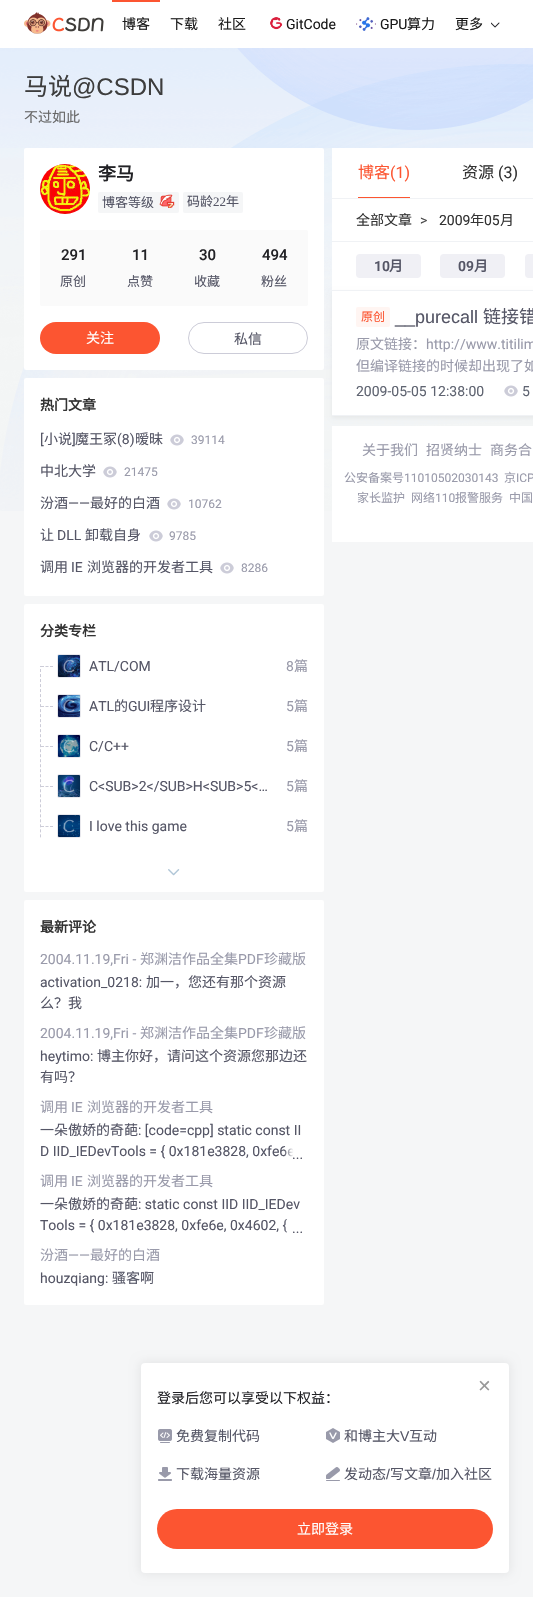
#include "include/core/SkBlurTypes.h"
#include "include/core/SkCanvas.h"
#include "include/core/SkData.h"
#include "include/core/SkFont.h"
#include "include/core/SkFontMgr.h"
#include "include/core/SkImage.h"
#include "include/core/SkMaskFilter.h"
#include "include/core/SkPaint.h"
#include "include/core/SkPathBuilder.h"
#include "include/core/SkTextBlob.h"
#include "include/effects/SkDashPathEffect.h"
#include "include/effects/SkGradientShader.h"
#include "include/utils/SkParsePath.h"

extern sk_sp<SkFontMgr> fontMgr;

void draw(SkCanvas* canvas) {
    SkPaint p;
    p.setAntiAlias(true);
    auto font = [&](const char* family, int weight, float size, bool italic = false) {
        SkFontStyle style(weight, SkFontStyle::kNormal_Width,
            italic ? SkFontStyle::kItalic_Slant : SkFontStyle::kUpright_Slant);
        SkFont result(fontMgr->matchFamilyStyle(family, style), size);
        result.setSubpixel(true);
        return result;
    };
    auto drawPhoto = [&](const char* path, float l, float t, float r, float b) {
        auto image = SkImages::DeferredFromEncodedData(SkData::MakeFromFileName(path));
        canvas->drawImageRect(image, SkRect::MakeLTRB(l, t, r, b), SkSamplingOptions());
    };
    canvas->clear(0xFFF5F6F7);
    drawPhoto("media/1.png", 0, 148, 533, 511);
    p.setColor(0xFFFFFFFF);
    canvas->drawRect(SkRect::MakeLTRB(0, 0, 533, 48), p);
    drawPhoto("media/2.png", 24, 12, 104, 34);
    p.setColor(0xFFFC5531);
    canvas->drawRect(SkRect::MakeLTRB(112, 0, 160, 2), p);
    auto font1 = font("Noto Sans CJK SC", 400, 14);
    p.setColor(0xFF1A1A1A);
    {
        const struct { const char* s; float x, y; } items[] = {
            {"博客", 122, 29},
            {"下载", 170, 29},
            {"社区", 218, 29},
        };
        for (auto [s, x, y] : items) {
            canvas->drawString(s, x, y, font1, p);
        }
    }
    drawPhoto("media/3.png", 270, 17, 283, 30);
    auto font2 = font("Roboto", 400, 14);
    canvas->drawString("GitCode", 286, 29, font2, p);
    drawPhoto("media/4.png", 356, 17, 376, 31);
    canvas->drawString("GPU", 380, 29, font2, p);
    canvas->drawString("算力", 407, 29, font1, p);
    canvas->drawString("更多", 455, 29, font1, p);
    drawPhoto("media/5.png", 491, 22, 500, 28);
    drawPhoto("media/6.png", 0, 48, 533, 148);
    auto font3 = font("Noto Sans CJK SC", 400, 24);
    p.setColor(0xFF3D3D3D);
    canvas->drawString("马说", 24, 95, font3, p);
    auto font4 = font("Liberation Sans", 400, 24);
    canvas->drawString("@CSDN", 72, 95, font4, p);
    p.setColor(0xFF666666);
    canvas->drawString("不过如此", 24, 122, font1, p);
    p.setColor(0xFFFFFFFF);
    canvas->drawRoundRect(SkRect::MakeLTRB(24, 148, 324, 370), 2, 2, p);
    drawPhoto("media/7.png", 40, 164, 90, 214);
    auto font5 = font("Noto Sans CJK SC", 700, 18);
    p.setColor(0xFF222226);
    canvas->drawString("李马", 98, 180, font5, p);
    p.setColor(0xFFF5F6F7);
    canvas->drawRoundRect(SkRect::MakeLTRB(98, 192, 179, 213), 2, 2, p);
    auto font6 = font("Noto Sans CJK SC", 400, 13);
    p.setColor(0xFF555666);
    canvas->drawString("博客等级", 102, 207, font6, p);
    drawPhoto("media/8.png", 159, 194, 175, 208);
    p.setColor(0xFFF5F6F7);
    canvas->drawRoundRect(SkRect::MakeLTRB(183, 192, 243, 213), 2, 2, p);
    p.setColor(0xFF555666);
    canvas->drawString("码龄", 187, 206, font6, p);
    auto font7 = font("Liberation Serif", 400, 13);
    canvas->drawString("22", 213, 206, font7, p);
    canvas->drawString("年", 226, 206, font6, p);
    p.setColor(0xFFFAFAFA);
    canvas->drawRoundRect(SkRect::MakeLTRB(40, 230, 308, 306), 2, 2, p);
    auto font8 = font("Roboto", 500, 15);
    p.setColor(0xFF222226);
    canvas->drawString("291", 61, 260, font8, p);
    p.setColor(0xFF555666);
    canvas->drawString("原创", 60, 286, font6, p);
    p.setColor(0xFF222226);
    canvas->drawString("11", 132, 260, font8, p);
    p.setColor(0xFF555666);
    canvas->drawString("点赞", 127, 286, font6, p);
    p.setColor(0xFF222226);
    canvas->drawString("30", 199, 260, font8, p);
    p.setColor(0xFF555666);
    canvas->drawString("收藏", 194, 286, font6, p);
    p.setColor(0xFF222226);
    canvas->drawString("494", 262, 260, font8, p);
    p.setColor(0xFF555666);
    canvas->drawString("粉丝", 261, 286, font6, p);
    p.setColor(0xFFFC5531);
    canvas->drawRoundRect(SkRect::MakeLTRB(40, 322, 160, 354), 16, 16, p);
    p.setColor(0xFFFFFFFF);
    canvas->drawString("关注", 86, 343, font1, p);
    p.setStyle(SkPaint::kStroke_Style);
    p.setStrokeWidth(1);
    p.setColor(0xFFCCCCD8);
    canvas->drawRoundRect(SkRect::MakeLTRB(188.5f, 322.5f, 307.5f, 353.5f), 15.5f, 15.5f, p);
    p.setStyle(SkPaint::kFill_Style);
    p.setColor(0xFF555666);
    canvas->drawString("私信", 234, 344, font1, p);
    p.setColor(0xFFFFFFFF);
    canvas->drawRoundRect(SkRect::MakeLTRB(24, 378, 324, 596), 2, 2, p);
    auto font9 = font("Noto Sans CJK SC", 700, 14);
    p.setColor(0xFF333333);
    canvas->drawString("热门文章", 40, 410, font9, p);
    p.setColor(0xFF555666);
    canvas->drawString("[", 40, 444, font2, p);
    canvas->drawString("小说", 44, 444, font1, p);
    canvas->drawString("]", 72, 444, font2, p);
    canvas->drawString("魔王冢", 75, 444, font1, p);
    canvas->drawString("(8)", 117, 444, font2, p);
    canvas->drawString("暧昧", 135, 444, font1, p);
    drawPhoto("media/9.png", 170, 434, 184, 446);
    auto font10 = font("Roboto", 400, 12);
    p.setColor(0xFF999AAA);
    canvas->drawString("39114", 191, 444, font10, p);
    p.setColor(0xFF555666);
    canvas->drawString("中北大学", 40, 476, font1, p);
    drawPhoto("media/9.png", 103, 466, 117, 478);
    p.setColor(0xFF999AAA);
    canvas->drawString("21475", 124, 476, font10, p);
    p.setColor(0xFF555666);
    canvas->drawString("汾酒", 40, 508, font1, p);
    canvas->drawString("——", 68, 508, font2, p);
    canvas->drawString("最好的白酒", 90, 508, font1, p);
    drawPhoto("media/9.png", 167, 498, 181, 510);
    p.setColor(0xFF999AAA);
    canvas->drawString("10762", 188, 508, font10, p);
    p.setColor(0xFF555666);
    canvas->drawString("让", 40, 540, font1, p);
    canvas->drawString("DLL", 57, 540, font2, p);
    canvas->drawString("卸载自身", 85, 540, font1, p);
    drawPhoto("media/9.png", 149, 530, 163, 542);
    p.setColor(0xFF999AAA);
    canvas->drawString("9785", 169, 540, font10, p);
    p.setColor(0xFF555666);
    canvas->drawString("调用", 40, 572, font1, p);
    canvas->drawString("IE", 71, 572, font2, p);
    canvas->drawString("浏览器的开发者工具", 87, 572, font1, p);
    drawPhoto("media/9.png", 220, 562, 234, 574);
    p.setColor(0xFF999AAA);
    canvas->drawString("8286", 241, 572, font10, p);
    p.setColor(0xFFFFFFFF);
    canvas->drawRoundRect(SkRect::MakeLTRB(24, 604, 324, 892), 2, 2, p);
    p.setColor(0xFF333333);
    canvas->drawString("分类专栏", 40, 636, font9, p);
    canvas->save();
    canvas->clipRect(SkRect::MakeLTRB(24, 642, 324, 850));
    p.setStyle(SkPaint::kStroke_Style);
    p.setColor(0xFFCCCCD8);
    p.setPathEffect(SkDashPathEffect::Make({{3, 2.01f}}, 0));
    canvas->drawPath(SkPathBuilder().moveTo(40.5f, 654).lineTo(40.5f, 1398).detach(), p);
    p.setPathEffect(nullptr);
    canvas->restore();
    p.setStyle(SkPaint::kFill_Style);
    p.setColor(0xFFFFFFFF);
    canvas->drawRect(SkRect::MakeLTRB(40, 654, 41, 666), p);
    p.setStyle(SkPaint::kStroke_Style);
    p.setColor(0xFFCCCCD8);
    canvas->drawPath(SkPathBuilder().moveTo(41, 666.5f).lineTo(44, 666.5f).moveTo(45.5f, 666.5f).lineTo(48.5f, 666.5f).moveTo(50, 666.5f).lineTo(53, 666.5f).detach(), p);
    p.setColor(0xFFE8E8ED);
    canvas->drawRoundRect(SkRect::MakeLTRB(57.5f, 654.5f, 80.5f, 677.5f), 1.5f, 1.5f, p);
    drawPhoto("media/10.png", 58, 655, 80, 677);
    p.setStyle(SkPaint::kFill_Style);
    p.setColor(0xFF555666);
    canvas->drawString("ATL/COM", 89, 671, font2, p);
    p.setColor(0xFF999AAA);
    canvas->drawString("8", 286, 671, font2, p);
    canvas->drawString("篇", 294, 671, font1, p);
    p.setStyle(SkPaint::kStroke_Style);
    p.setColor(0xFFCCCCD8);
    canvas->drawPath(SkPathBuilder().moveTo(41, 706.5f).lineTo(44, 706.5f).moveTo(45.5f, 706.5f).lineTo(48.5f, 706.5f).moveTo(50, 706.5f).lineTo(53, 706.5f).detach(), p);
    p.setColor(0xFFE8E8ED);
    canvas->drawRoundRect(SkRect::MakeLTRB(57.5f, 694.5f, 80.5f, 717.5f), 1.5f, 1.5f, p);
    drawPhoto("media/11.png", 58, 695, 80, 717);
    p.setStyle(SkPaint::kFill_Style);
    p.setColor(0xFF555666);
    canvas->drawString("ATL", 89, 711, font2, p);
    canvas->drawString("的", 114, 711, font1, p);
    canvas->drawString("GUI", 128, 711, font2, p);
    canvas->drawString("程序设计", 150, 711, font1, p);
    p.setColor(0xFF999AAA);
    canvas->drawString("5", 286, 711, font2, p);
    canvas->drawString("篇", 294, 711, font1, p);
    p.setStyle(SkPaint::kStroke_Style);
    p.setColor(0xFFCCCCD8);
    canvas->drawPath(SkPathBuilder().moveTo(41, 746.5f).lineTo(44, 746.5f).moveTo(45.5f, 746.5f).lineTo(48.5f, 746.5f).moveTo(50, 746.5f).lineTo(53, 746.5f).detach(), p);
    p.setColor(0xFFE8E8ED);
    canvas->drawRoundRect(SkRect::MakeLTRB(57.5f, 734.5f, 80.5f, 757.5f), 1.5f, 1.5f, p);
    drawPhoto("media/12.png", 58, 735, 80, 757);
    p.setStyle(SkPaint::kFill_Style);
    p.setColor(0xFF555666);
    canvas->drawString("C/C++", 89, 751, font2, p);
    p.setColor(0xFF999AAA);
    canvas->drawString("5", 286, 751, font2, p);
    canvas->drawString("篇", 294, 751, font1, p);
    p.setStyle(SkPaint::kStroke_Style);
    p.setColor(0xFFCCCCD8);
    canvas->drawPath(SkPathBuilder().moveTo(41, 786.5f).lineTo(44, 786.5f).moveTo(45.5f, 786.5f).lineTo(48.5f, 786.5f).moveTo(50, 786.5f).lineTo(53, 786.5f).detach(), p);
    p.setColor(0xFFE8E8ED);
    canvas->drawRoundRect(SkRect::MakeLTRB(57.5f, 774.5f, 80.5f, 797.5f), 1.5f, 1.5f, p);
    drawPhoto("media/13.png", 58, 775, 80, 797);
    p.setStyle(SkPaint::kFill_Style);
    p.setColor(0xFF555666);
    canvas->drawString("C<SUB>2</SUB>H<SUB>5<…", 89, 791, font2, p);
    p.setColor(0xFF999AAA);
    canvas->drawString("5", 286, 791, font2, p);
    canvas->drawString("篇", 294, 791, font1, p);
    p.setStyle(SkPaint::kStroke_Style);
    p.setColor(0xFFCCCCD8);
    canvas->drawPath(SkPathBuilder().moveTo(41, 826.5f).lineTo(44, 826.5f).moveTo(45.5f, 826.5f).lineTo(48.5f, 826.5f).moveTo(50, 826.5f).lineTo(53, 826.5f).detach(), p);
    p.setColor(0xFFE8E8ED);
    canvas->drawRoundRect(SkRect::MakeLTRB(57.5f, 814.5f, 80.5f, 837.5f), 1.5f, 1.5f, p);
    drawPhoto("media/14.png", 58, 815, 80, 837);
    p.setStyle(SkPaint::kFill_Style);
    p.setColor(0xFF555666);
    canvas->drawString("I love this game", 89, 831, font2, p);
    p.setColor(0xFF999AAA);
    canvas->drawString("5", 286, 831, font2, p);
    canvas->drawString("篇", 294, 831, font1, p);
    p.setColor(0xFFFFFFFF);
    canvas->drawRect(SkRect::MakeLTRB(40, 838, 41, 850), p);
    drawPhoto("media/15.png", 168, 869, 180, 876);
    canvas->drawRoundRect(SkRect::MakeLTRB(24, 900, 324, 1305), 2, 2, p);
    p.setColor(0xFF333333);
    canvas->drawString("最新评论", 40, 932, font9, p);
    p.setColor(0xFF999AAA);
    canvas->drawString("2004.11.19,Fri -", 40, 964, font2, p);
    canvas->drawString("郑渊洁作品全集", 140, 964, font1, p);
    canvas->drawString("PDF", 238, 964, font2, p);
    canvas->drawString("珍藏版", 264, 964, font1, p);
    p.setColor(0xFF555666);
    canvas->drawString("activation_0218:", 40, 987, font2, p);
    canvas->drawString("加一，您还有那个资源", 146, 987, font1, p);
    canvas->drawString("么？我", 40, 1008, font1, p);
    p.setColor(0xFF999AAA);
    canvas->drawString("2004.11.19,Fri -", 40, 1038, font2, p);
    canvas->drawString("郑渊洁作品全集", 140, 1038, font1, p);
    canvas->drawString("PDF", 238, 1038, font2, p);
    canvas->drawString("珍藏版", 264, 1038, font1, p);
    p.setColor(0xFF555666);
    canvas->drawString("heytimo:", 40, 1061, font2, p);
    canvas->drawString("博主你好，请问这个资源您那边还", 97, 1061, font1, p);
    canvas->drawString("有吗？", 40, 1082, font1, p);
    p.setColor(0xFF999AAA);
    canvas->drawString("调用", 40, 1112, font1, p);
    canvas->drawString("IE", 71, 1112, font2, p);
    canvas->drawString("浏览器的开发者工具", 87, 1112, font1, p);
    p.setColor(0xFF555666);
    canvas->drawString("一朵傲娇的奇葩", 40, 1135, font1, p);
    canvas->drawString(": [code=cpp] static const II", 138, 1135, font2, p);
    canvas->drawString("D IID_IEDevTools = { 0x181e3828, 0xfe6e", 40, 1156, font2, p);
    {
        const SkColor colors[] = {0x00FFFFFF, 0xFFFFFFFF};
        const float stops[] = {0, 0.4f};
        const SkPoint ends[] = {{284, 1153}, {308, 1153}};
        p.setShader(SkGradientShader::MakeLinear(ends, colors, stops, 2, SkTileMode::kClamp));
        p.setAlpha(255);
    }
    canvas->drawRect(SkRect::MakeLTRB(284, 1146, 295, 1157), p);
    p.setShader(nullptr);
    p.setColor(0xFF555666);
    canvas->drawString("...", 292, 1159, font2, p);
    p.setColor(0xFF999AAA);
    canvas->drawString("调用", 40, 1186, font1, p);
    canvas->drawString("IE", 71, 1186, font2, p);
    canvas->drawString("浏览器的开发者工具", 87, 1186, font1, p);
    p.setColor(0xFF555666);
    canvas->drawString("一朵傲娇的奇葩", 40, 1209, font1, p);
    canvas->drawString(": static const IID IID_IEDev", 138, 1209, font2, p);
    canvas->drawString("Tools = { 0x181e3828, 0xfe6e, 0x4602, {", 40, 1230, font2, p);
    {
        const SkColor colors[] = {0x00FFFFFF, 0xFFFFFFFF};
        const float stops[] = {0, 0.4f};
        const SkPoint ends[] = {{284, 1227}, {308, 1227}};
        p.setShader(SkGradientShader::MakeLinear(ends, colors, stops, 2, SkTileMode::kClamp));
        p.setAlpha(255);
    }
    canvas->drawRect(SkRect::MakeLTRB(284, 1219, 287, 1233), p);
    p.setShader(nullptr);
    p.setColor(0xFF555666);
    canvas->drawString("...", 292, 1233, font2, p);
    p.setColor(0xFF999AAA);
    canvas->drawString("汾酒", 40, 1260, font1, p);
    canvas->drawString("——", 68, 1260, font2, p);
    canvas->drawString("最好的白酒", 90, 1260, font1, p);
    p.setColor(0xFF555666);
    canvas->drawString("houzqiang:", 40, 1283, font2, p);
    canvas->drawString("骚客啊", 112, 1283, font1, p);
    {
        const struct { float l, t, r, b; SkColor color; } items[] = {
            {332, 148, 533, 198, 0xFFFFFFFF},
            {332, 198, 533, 199, 0xFFF0F2F5},
            {358, 197, 410, 198, 0xFFFC5531},
        };
        for (auto [l, t, r, b, color] : items) {
            p.setColor(color);
            canvas->drawRect(SkRect::MakeLTRB(l, t, r, b), p);
        }
    }
    auto font11 = font("Noto Sans CJK SC", 400, 16);
    canvas->drawString("博客", 358, 178, font11, p);
    auto font12 = font("Roboto", 400, 16);
    canvas->drawString("(1)", 390, 178, font12, p);
    p.setColor(0xFF333333);
    canvas->drawString("资源", 462, 178, font11, p);
    canvas->drawString("(3)", 498, 178, font12, p);
    p.setColor(0xFFFFFFFF);
    canvas->drawRect(SkRect::MakeLTRB(332, 199, 533, 241), p);
    p.setColor(0xFF333333);
    canvas->drawString("全部文章", 356, 225, font1, p);
    p.setColor(0xFF4D4D4D);
    canvas->drawString(">", 420, 225, font2, p);
    p.setColor(0xFF333333);
    canvas->drawString("2009", 439, 225, font2, p);
    canvas->drawString("年", 470, 225, font1, p);
    canvas->drawString("05", 484, 225, font2, p);
    canvas->drawString("月", 500, 225, font1, p);
    p.setColor(0xFFFFFFFF);
    canvas->drawRect(SkRect::MakeLTRB(332, 242, 533, 290), p);
    p.setColor(0xFFF0F2F5);
    canvas->drawRect(SkRect::MakeLTRB(332, 241, 533, 242), p);
    p.setColor(0xFFF0F0F5);
    canvas->drawRoundRect(SkRect::MakeLTRB(356, 254, 421, 278), 4, 4, p);
    auto font13 = font("Roboto", 600, 14);
    p.setColor(0xFF555666);
    canvas->drawString("10", 374, 271, font13, p);
    canvas->drawString("月", 389, 271, font9, p);
    p.setColor(0xFFF0F0F5);
    canvas->drawRoundRect(SkRect::MakeLTRB(440, 254, 505, 278), 4, 4, p);
    p.setColor(0xFF555666);
    canvas->drawString("09", 458, 271, font13, p);
    canvas->drawString("月", 474, 271, font9, p);
    p.setColor(0xFFF0F0F5);
    canvas->drawRoundRect(SkRect::MakeLTRB(525, 254, 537, 278), 4, 4, p);
    p.setColor(0x0D000000);
    p.setMaskFilter(SkMaskFilter::MakeBlur(kNormal_SkBlurStyle, 2));
    canvas->drawRect(SkRect::MakeLTRB(332, 292, 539, 418), p);
    p.setMaskFilter(nullptr);
    {
        const struct { float l, t, r, b; SkColor color; } items[] = {
            {332, 291, 533, 415, 0xFFFFFFFF},
            {332, 290, 533, 291, 0xFFF0F2F5},
            {332, 415, 533, 416, 0xFFF0F2F5},
        };
        for (auto [l, t, r, b, color] : items) {
            p.setColor(color);
            canvas->drawRect(SkRect::MakeLTRB(l, t, r, b), p);
        }
    }
    p.setColor(0xFFFFF5F2);
    canvas->drawRoundRect(SkRect::MakeLTRB(356, 307, 390, 327), 2, 2, p);
    auto font14 = font("Noto Sans CJK SC", 400, 12);
    p.setColor(0xFFFC5531);
    canvas->drawString("原创", 361, 321, font14, p);
    auto font15 = font("Liberation Sans", 400, 18);
    p.setColor(0xFF555666);
    canvas->drawString("__purecall", 395, 323, font15, p);
    auto font16 = font("Noto Sans CJK SC", 400, 18);
    canvas->drawString("链接错", 483, 323, font16, p);
    p.setColor(0xFF999AAA);
    canvas->drawString("原文链接：", 356, 349, font1, p);
    canvas->drawString("http://www.titilim", 426, 349, font2, p);
    canvas->drawString("但编译链接的时候却出现了如", 356, 371, font1, p);
    p.setColor(0xFF5F6471);
    canvas->drawString("2009-05-05 12:38:00", 356, 396, font2, p);
    drawPhoto("media/9.png", 504, 385, 518, 397);
    canvas->drawString("5", 522, 396, font2, p);
    p.setColor(0xFFFFFFFF);
    canvas->drawRect(SkRect::MakeLTRB(332, 426, 533, 542), p);
    p.setColor(0xFF999AAA);
    {
        const struct { const char* s; float x, y; } items[] = {
            {"关于我们", 362, 455},
            {"招贤纳士", 426, 455},
            {"商务合", 490, 455},
        };
        for (auto [s, x, y] : items) {
            canvas->drawString(s, x, y, font1, p);
        }
    }
    canvas->drawString("公安备案号", 344, 482, font14, p);
    canvas->drawString("11010502030143", 404, 482, font10, p);
    canvas->drawString("京", 504, 482, font14, p);
    canvas->drawString("ICP", 516, 482, font10, p);
    canvas->drawString("家长监护", 357, 502, font14, p);
    canvas->drawString("网络", 411, 502, font14, p);
    canvas->drawString("110", 435, 502, font10, p);
    canvas->drawString("报警服务", 455, 502, font14, p);
    canvas->drawString("中国", 509, 502, font14, p);
    p.setColor(0x0F000000);
    p.setMaskFilter(SkMaskFilter::MakeBlur(kNormal_SkBlurStyle, 5));
    canvas->drawRoundRect(SkRect::MakeLTRB(139, 1361, 511, 1575), 6, 6, p);
    p.setMaskFilter(nullptr);
    p.setColor(0xFFFFFFFF);
    canvas->drawRoundRect(SkRect::MakeLTRB(141, 1363, 509, 1573), 4, 4, p);
    auto font17 = font("Liberation Sans", 400, 22);
    p.setColor(0xFF999999);
    canvas->drawString("×", 478, 1393, font17, p);
    p.setColor(0xFF222226);
    canvas->drawString("登录后您可以享受以下权益：", 157, 1403, font1, p);
    drawPhoto("media/16.png", 158, 1429, 172, 1443);
    p.setColor(0xFF555666);
    canvas->drawString("免费复制代码", 176, 1441, font1, p);
    drawPhoto("media/17.png", 326, 1428, 340, 1443);
    canvas->drawString("和博主大", 344, 1441, font1, p);
    auto font18 = font("Liberation Sans", 400, 14);
    canvas->drawString("V", 400, 1441, font18, p);
    canvas->drawString("互动", 409, 1441, font1, p);
    drawPhoto("media/18.png", 158, 1467, 172, 1481);
    canvas->drawString("下载海量资源", 176, 1479, font1, p);
    drawPhoto("media/19.png", 326, 1467, 340, 1481);
    canvas->drawString("发动态", 344, 1479, font1, p);
    canvas->drawString("/", 386, 1479, font18, p);
    canvas->drawString("写文章", 390, 1479, font1, p);
    canvas->drawString("/", 432, 1479, font18, p);
    canvas->drawString("加入社区", 436, 1479, font1, p);
    p.setColor(0xFFFC5531);
    canvas->drawRoundRect(SkRect::MakeLTRB(157, 1509, 493, 1549), 20, 20, p);
    p.setColor(0xFFFFFFFF);
    canvas->drawString("立即登录", 297, 1534, font1, p);
}
